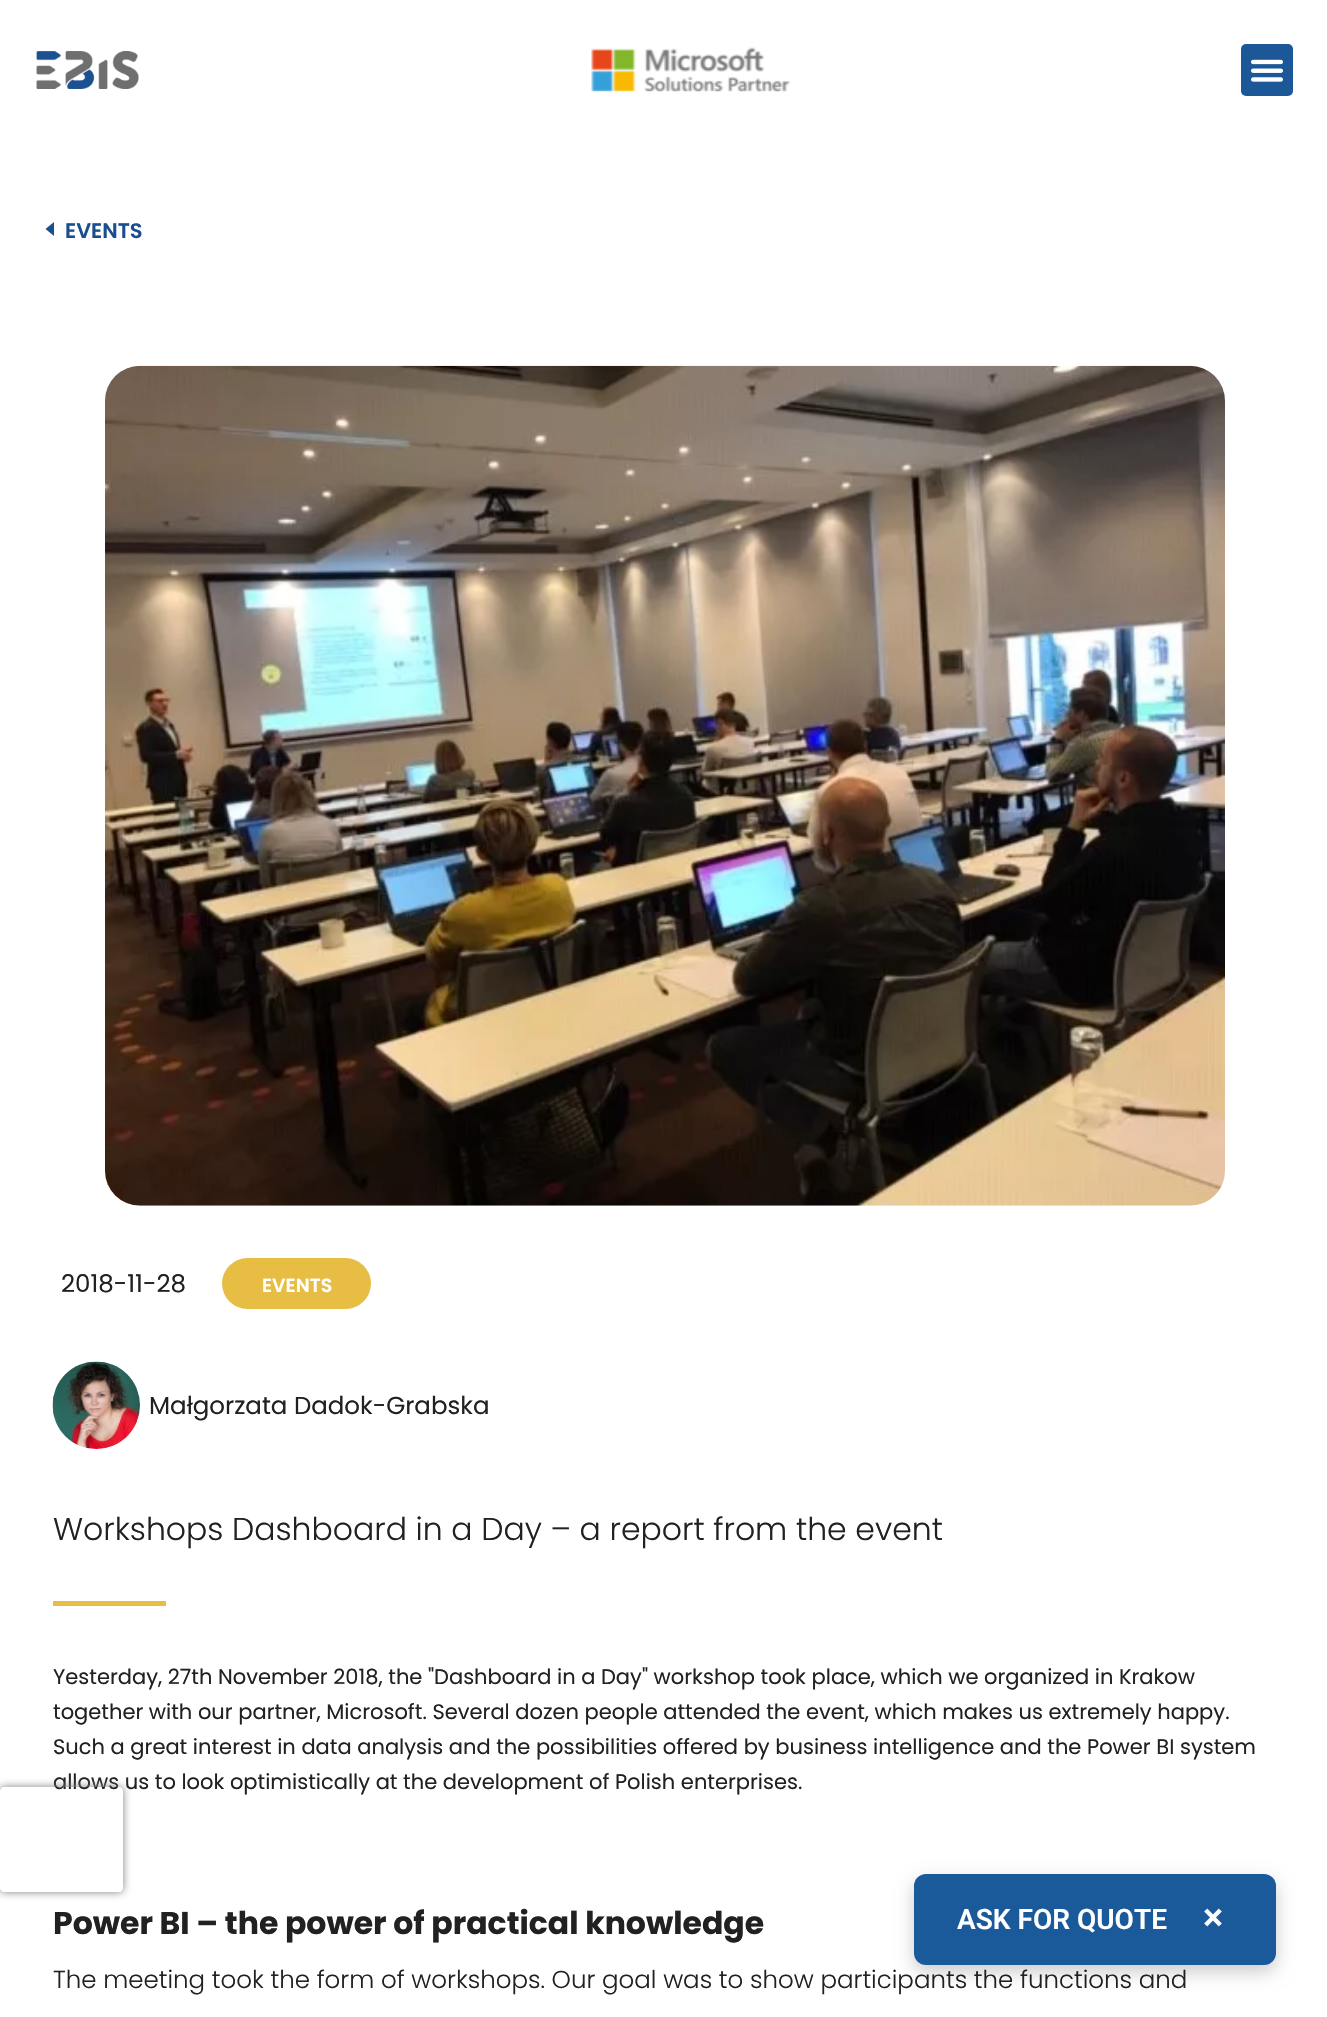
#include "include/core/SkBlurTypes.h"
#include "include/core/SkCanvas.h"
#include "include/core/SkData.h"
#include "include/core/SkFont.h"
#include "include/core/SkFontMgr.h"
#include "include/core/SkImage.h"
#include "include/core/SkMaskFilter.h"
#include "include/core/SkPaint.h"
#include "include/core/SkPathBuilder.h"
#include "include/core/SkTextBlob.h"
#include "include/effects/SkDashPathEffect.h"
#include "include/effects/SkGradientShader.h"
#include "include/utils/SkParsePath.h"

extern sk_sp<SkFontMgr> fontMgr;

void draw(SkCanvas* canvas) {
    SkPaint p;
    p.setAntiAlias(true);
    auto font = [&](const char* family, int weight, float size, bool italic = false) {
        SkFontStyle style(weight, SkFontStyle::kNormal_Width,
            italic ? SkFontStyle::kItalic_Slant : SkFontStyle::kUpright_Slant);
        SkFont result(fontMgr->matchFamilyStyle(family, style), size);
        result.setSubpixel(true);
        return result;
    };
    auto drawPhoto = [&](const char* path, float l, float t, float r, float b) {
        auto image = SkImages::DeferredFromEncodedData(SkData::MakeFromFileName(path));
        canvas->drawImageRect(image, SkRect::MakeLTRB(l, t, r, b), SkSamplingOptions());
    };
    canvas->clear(0xFFFFFFFF);
    drawPhoto("media/1.png", 36, 51, 139, 89);
    drawPhoto("media/2.png", 591, 47, 791, 92);
    p.setColor(0xFF1C5798);
    canvas->drawRoundRect(SkRect::MakeLTRB(1241, 44, 1293, 96), 5, 5, p);
    drawPhoto("media/3.png", 1251, 59, 1283, 82);
    p.setColor(0xFF194F90);
    canvas->drawPath(SkPathBuilder().moveTo(54, 222).lineTo(54, 236).lineTo(45.5f, 229).close().detach(), p);
    auto font1 = font("Poppins", 600, 21);
    canvas->drawString("EVENTS", 65, 238, font1, p);
    drawPhoto("media/4.png", 105, 365, 1225, 1206);
    auto font2 = font("Poppins", 400, 24.5f);
    p.setColor(0xFF212121);
    canvas->drawString("2018-11-28", 61, 1292, font2, p);
    p.setColor(0xFFE7BD43);
    canvas->drawRoundRect(SkRect::MakeLTRB(222, 1258, 371, 1309), 25.5f, 25.5f, p);
    auto font3 = font("Poppins", 600, 19);
    p.setColor(0xFFFFFFFF);
    canvas->drawString("EVENTS", 262, 1292, font3, p);
    drawPhoto("media/5.png", 52, 1361, 140, 1449);
    p.setColor(0xFF212121);
    canvas->drawString("Małgorzata Dadok-Grabska", 149, 1414, font2, p);
    auto font4 = font("Poppins", 300, 31.5f);
    canvas->drawString("Workshops Dashboard in a Day – a report from the event", 53, 1540, font4, p);
    p.setColor(0xFFE7BD43);
    canvas->drawRect(SkRect::MakeLTRB(53, 1601, 166, 1606), p);
    auto font5 = font("Poppins", 400, 21);
    p.setColor(0xFF212121);
    {
        const struct { const char* s; float x, y; } items[] = {
            {"Yesterday, 27th November 2018, the \"Dashboard in a Day\" workshop took place, which we organized in Krakow", 53, 1684},
            {"together with our partner, Microsoft. Several dozen people attended the event, which makes us extremely happy.", 53, 1719},
            {"Such a great interest in data analysis and the possibilities offered by business intelligence and the Power BI system", 53, 1754},
            {"allows us to look optimistically at the development of Polish enterprises.", 53, 1789},
        };
        for (auto [s, x, y] : items) {
            canvas->drawString(s, x, y, font5, p);
        }
    }
    auto font6 = font("Poppins", 700, 31.5f);
    canvas->drawString("Power BI – the power of practical knowledge", 53, 1934, font6, p);
    auto font7 = font("Poppins", 300, 24.5f);
    canvas->drawString("The meeting took the form of workshops. Our goal was to show participants the functions and", 53, 1988, font7, p);
    canvas->save();
    canvas->clipPath(SkPathBuilder(SkPathFillType::kEvenOdd).moveTo(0, 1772).lineTo(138, 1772).lineTo(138, 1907).lineTo(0, 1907).close().moveTo(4, 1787).lineTo(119, 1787).cubicTo(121, 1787, 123, 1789, 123, 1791).lineTo(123, 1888).cubicTo(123, 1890, 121, 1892, 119, 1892).lineTo(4, 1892).cubicTo(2, 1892, 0, 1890, 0, 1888).lineTo(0, 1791).cubicTo(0, 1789, 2, 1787, 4, 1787).close().detach(), true);
    p.setColor(0xFF808080);
    p.setMaskFilter(SkMaskFilter::MakeBlur(kNormal_SkBlurStyle, 4.5f));
    canvas->drawRoundRect(SkRect::MakeLTRB(0, 1787, 123, 1892), 4, 4, p);
    p.setMaskFilter(nullptr);
    canvas->restore();
    p.setColor(0x33000000);
    p.setMaskFilter(SkMaskFilter::MakeBlur(kNormal_SkBlurStyle, 9));
    canvas->drawRoundRect(SkRect::MakeLTRB(914, 1881, 1276, 1972), 12, 12, p);
    p.setMaskFilter(nullptr);
    p.setColor(0xFF1A599A);
    canvas->drawRoundRect(SkRect::MakeLTRB(914, 1874, 1276, 1965), 12, 12, p);
    auto font8 = font("Roboto", 600, 28);
    p.setColor(0xFFFFFFFF);
    canvas->drawString("ASK FOR QUOTE", 957, 1929, font8, p);
    auto font9 = font("Roboto", 600, 38);
    canvas->drawString("×", 1203, 1930, font9, p);
}
